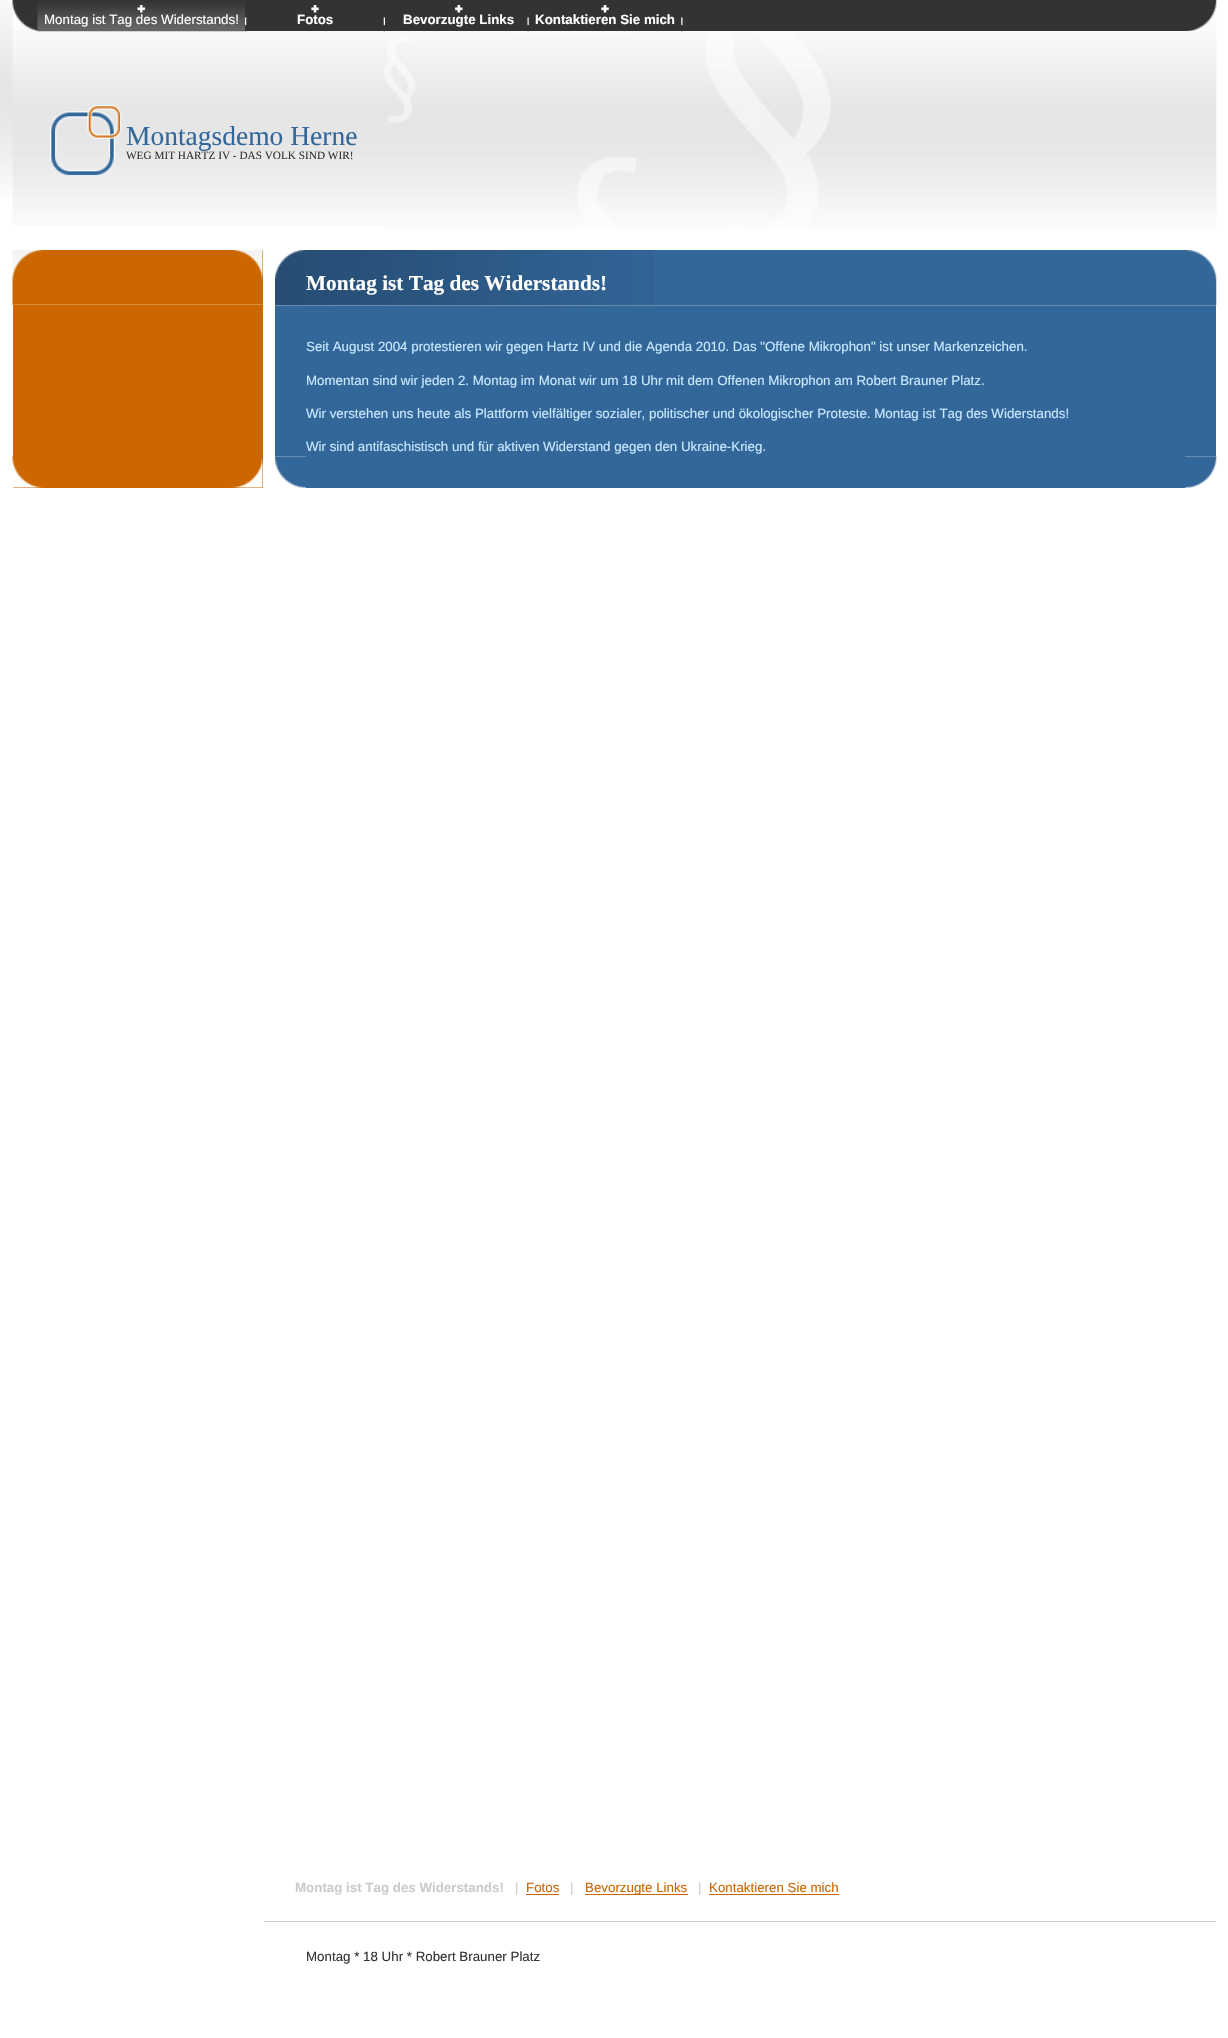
#include "include/core/SkBlurTypes.h"
#include "include/core/SkCanvas.h"
#include "include/core/SkData.h"
#include "include/core/SkFont.h"
#include "include/core/SkFontMgr.h"
#include "include/core/SkImage.h"
#include "include/core/SkMaskFilter.h"
#include "include/core/SkPaint.h"
#include "include/core/SkPathBuilder.h"
#include "include/core/SkTextBlob.h"
#include "include/effects/SkDashPathEffect.h"
#include "include/effects/SkGradientShader.h"
#include "include/utils/SkParsePath.h"

extern sk_sp<SkFontMgr> fontMgr;

void draw(SkCanvas* canvas) {
    SkPaint p;
    p.setAntiAlias(true);
    auto font = [&](const char* family, int weight, float size, bool italic = false) {
        SkFontStyle style(weight, SkFontStyle::kNormal_Width,
            italic ? SkFontStyle::kItalic_Slant : SkFontStyle::kUpright_Slant);
        SkFont result(fontMgr->matchFamilyStyle(family, style), size);
        result.setSubpixel(true);
        return result;
    };
    auto drawPhoto = [&](const char* path, float l, float t, float r, float b) {
        auto image = SkImages::DeferredFromEncodedData(SkData::MakeFromFileName(path));
        canvas->drawImageRect(image, SkRect::MakeLTRB(l, t, r, b), SkSamplingOptions());
    };
    canvas->clear(0xFFFFFFFF);
    drawPhoto("media/1.png", 0, 0, 975, 197);
    p.setColor(0xFF333333);
    canvas->drawRect(SkRect::MakeLTRB(246, 0, 1185, 31), p);
    drawPhoto("media/2.png", 1185, 0, 1217, 32);
    drawPhoto("media/3.png", 12, 0, 44, 32);
    drawPhoto("media/12.png", 12, 31, 1217, 226);
    drawPhoto("media/4.png", 37, 0, 245, 32);
    drawPhoto("media/5.png", 137, 5, 146, 13);
    auto font1 = font("Liberation Sans", 400, 13.33f);
    p.setColor(0xFFFFFFFF);
    canvas->drawString("Montag ist Tag des Widerstands!", 44, 24, font1, p);
    drawPhoto("media/6.png", 245, 0, 247, 32);
    drawPhoto("media/7.png", 311, 5, 319, 13);
    auto font2 = font("Liberation Sans", 700, 13.33f);
    canvas->drawString("Fotos", 297, 24, font2, p);
    drawPhoto("media/13.png", 384, 31, 1217, 228);
    drawPhoto("media/8.png", 383, 0, 385, 32);
    drawPhoto("media/9.png", 454, 5, 463, 13);
    canvas->drawString("Bevorzugte Links", 403, 24, font2, p);
    drawPhoto("media/10.png", 527, 0, 529, 32);
    drawPhoto("media/7.png", 601, 5, 609, 13);
    canvas->drawString("Kontaktieren Sie mich", 535, 24, font2, p);
    drawPhoto("media/11.png", 681, 0, 683, 32);
    drawPhoto("media/14.png", 50, 105, 122, 177);
    auto font3 = font("Liberation Serif", 400, 27.5f);
    p.setColor(0xFF336699);
    canvas->drawString("Montagsdemo Herne", 126, 145, font3, p);
    auto font4 = font("Liberation Serif", 400, 11.25f);
    p.setColor(0xFF333333);
    canvas->drawString("WEG MIT HARTZ IV - DAS VOLK SIND WIR!", 126, 159, font4, p);
    p.setColor(0xFFCC6600);
    canvas->drawRect(SkRect::MakeLTRB(13, 250, 263, 488), p);
    drawPhoto("media/15.png", 12, 456, 263, 488);
    drawPhoto("media/16.png", 12, 250, 263, 305);
    p.setColor(0xFFD98C40);
    canvas->drawRect(SkRect::MakeLTRB(13, 304, 263, 305), p);
    drawPhoto("media/17.png", 275, 250, 306, 305);
    p.setColor(0xFF336699);
    canvas->drawRect(SkRect::MakeLTRB(306, 250, 1185, 305), p);
    drawPhoto("media/18.png", 306, 250, 654, 305);
    auto font5 = font("Liberation Serif", 700, 21.25f);
    p.setColor(0xFFFFFFFF);
    canvas->drawString("Montag ist Tag des Widerstands!", 306, 290, font5, p);
    drawPhoto("media/19.png", 1185, 250, 1217, 305);
    p.setColor(0xFF336699);
    canvas->drawRect(SkRect::MakeLTRB(275, 306, 1216, 456), p);
    p.setColor(0xFF668CB3);
    canvas->drawRect(SkRect::MakeLTRB(275, 305, 1216, 306), p);
    p.setColor(0xFFC8E9FF);
    {
        const struct { const char* s; float x, y; } items[] = {
            {"Seit August 2004 protestieren wir gegen Hartz IV und die Agenda 2010. Das \"Offene Mikrophon\" ist unser Markenzeichen.", 306, 351},
            {"Momentan sind wir jeden 2. Montag im Monat wir um 18 Uhr mit dem Offenen Mikrophon am Robert Brauner Platz.", 306, 385},
            {"Wir verstehen uns heute als Plattform vielfältiger sozialer, politischer und ökologischer Proteste. Montag ist Tag des Widerstands!", 306, 418},
            {"Wir sind antifaschistisch und für aktiven Widerstand gegen den Ukraine-Krieg.", 306, 451},
        };
        for (auto [s, x, y] : items) {
            canvas->drawString(s, x, y, font1, p);
        }
    }
    drawPhoto("media/20.png", 275, 456, 306, 488);
    p.setColor(0xFF336699);
    canvas->drawRect(SkRect::MakeLTRB(306, 456, 1185, 488), p);
    drawPhoto("media/21.png", 1185, 456, 1217, 488);
    p.setColor(0xFFCCCCCC);
    canvas->drawRect(SkRect::MakeLTRB(264, 1921, 1216, 1922), p);
    canvas->drawString("Montag ist Tag des Widerstands!", 295, 1892, font2, p);
    canvas->drawString("|", 515, 1892, font1, p);
    p.setColor(0xFFCC6600);
    canvas->drawString("Fotos", 526, 1892, font1, p);
    canvas->drawRect(SkRect::MakeLTRB(526, 1894, 559, 1895), p);
    p.setColor(0xFFCCCCCC);
    canvas->drawString("|", 570, 1892, font1, p);
    p.setColor(0xFFCC6600);
    canvas->drawRect(SkRect::MakeLTRB(585, 1894, 688, 1895), p);
    canvas->drawString("Bevorzugte Links", 585, 1892, font1, p);
    p.setColor(0xFFCCCCCC);
    canvas->drawString("|", 698, 1892, font1, p);
    p.setColor(0xFFCC6600);
    canvas->drawString("Kontaktieren Sie mich", 709, 1892, font1, p);
    canvas->drawRect(SkRect::MakeLTRB(709, 1894, 839, 1895), p);
    p.setColor(0xFF333333);
    canvas->drawString("Montag * 18 Uhr * Robert Brauner Platz", 306, 1961, font1, p);
}
